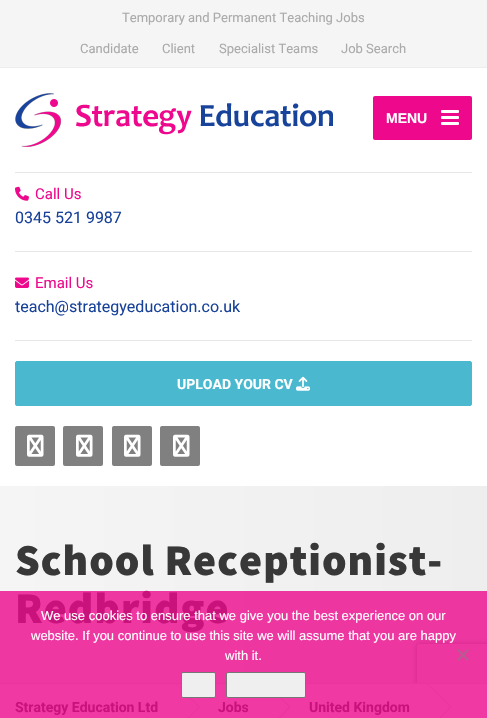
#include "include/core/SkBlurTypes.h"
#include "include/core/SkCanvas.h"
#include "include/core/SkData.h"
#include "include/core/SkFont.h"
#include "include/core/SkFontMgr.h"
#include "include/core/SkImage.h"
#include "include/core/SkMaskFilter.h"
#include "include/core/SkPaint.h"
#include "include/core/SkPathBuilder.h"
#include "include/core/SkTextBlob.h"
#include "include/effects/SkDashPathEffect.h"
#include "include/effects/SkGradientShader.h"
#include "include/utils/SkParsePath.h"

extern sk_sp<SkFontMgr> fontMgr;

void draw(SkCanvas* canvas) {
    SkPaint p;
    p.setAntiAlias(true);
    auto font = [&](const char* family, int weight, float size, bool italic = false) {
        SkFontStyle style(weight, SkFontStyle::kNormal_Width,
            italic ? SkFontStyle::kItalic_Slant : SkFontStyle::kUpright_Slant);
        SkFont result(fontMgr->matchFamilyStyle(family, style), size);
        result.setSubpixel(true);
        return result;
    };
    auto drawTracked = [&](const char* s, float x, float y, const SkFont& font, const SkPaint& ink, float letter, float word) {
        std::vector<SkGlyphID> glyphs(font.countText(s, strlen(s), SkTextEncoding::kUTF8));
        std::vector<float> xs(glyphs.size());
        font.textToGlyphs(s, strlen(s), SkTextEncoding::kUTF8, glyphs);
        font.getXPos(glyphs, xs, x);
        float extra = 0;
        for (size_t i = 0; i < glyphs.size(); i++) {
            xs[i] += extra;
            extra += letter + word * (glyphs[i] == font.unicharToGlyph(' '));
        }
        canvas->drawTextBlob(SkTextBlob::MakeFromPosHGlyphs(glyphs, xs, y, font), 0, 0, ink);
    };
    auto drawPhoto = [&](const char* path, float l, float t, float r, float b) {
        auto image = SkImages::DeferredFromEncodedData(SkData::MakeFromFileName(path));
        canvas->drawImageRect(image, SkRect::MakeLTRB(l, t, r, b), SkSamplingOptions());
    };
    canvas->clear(0xFFFFFFFF);
    p.setColor(0xFFF5F5F5);
    canvas->drawRect(SkRect::MakeLTRB(0, 0, 487, 67), p);
    p.setColor(0xFFEDEDED);
    canvas->drawRect(SkRect::MakeLTRB(0, 67, 487, 68), p);
    auto font1 = font("Roboto", 400, 13);
    p.setColor(0xFFAAAAAA);
    {
        const struct { const char* s; float x, y; } items[] = {
            {"Temporary and Permanent Teaching Jobs", 122, 22},
            {"Candidate", 80, 53},
            {"Client", 162, 53},
            {"Specialist Teams", 219, 53},
            {"Job Search", 341, 53},
        };
        for (auto [s, x, y] : items) {
            canvas->drawString(s, x, y, font1, p);
        }
    }
    p.setColor(0xFFE6E6E6);
    canvas->drawRect(SkRect::MakeLTRB(15, 172, 472, 173), p);
    drawPhoto("media/1.png", 15, 93, 333, 147);
    p.setColor(0xFFED088C);
    canvas->drawRoundRect(SkRect::MakeLTRB(373, 96, 472, 140), 2, 2, p);
    auto font2 = font("Liberation Sans", 700, 14);
    p.setColor(0xFFFFFFFF);
    canvas->drawString("MENU", 386, 123, font2, p);
    canvas->drawRoundRect(SkRect::MakeLTRB(441, 110, 459, 113), 1, 1, p);
    canvas->drawRoundRect(SkRect::MakeLTRB(441, 116, 459, 119), 1, 1, p);
    canvas->drawRoundRect(SkRect::MakeLTRB(441, 122, 459, 125), 1, 1, p);
    p.setColor(0xFFE6E6E6);
    canvas->drawRect(SkRect::MakeLTRB(15, 251, 472, 252), p);
    drawPhoto("media/2.png", 15, 186, 29, 201);
    auto font3 = font("Roboto", 400, 15);
    p.setColor(0xFFED088C);
    canvas->drawString("Call Us", 35, 199, font3, p);
    auto font4 = font("Roboto", 400, 16);
    p.setColor(0xFF18429A);
    canvas->drawString("0345 521 9987", 15, 223, font4, p);
    p.setColor(0xFFE6E6E6);
    canvas->drawRect(SkRect::MakeLTRB(15, 340, 472, 341), p);
    drawPhoto("media/3.png", 15, 277, 29, 288);
    p.setColor(0xFFED088C);
    canvas->drawString("Email Us", 35, 288, font3, p);
    p.setColor(0xFF18429A);
    canvas->drawString("teach@strategyeducation.co.uk", 15, 312, font4, p);
    p.setColor(0xFF4AB9CF);
    canvas->drawRoundRect(SkRect::MakeLTRB(15.5f, 361.5f, 471.5f, 405.5f), 1.5f, 1.5f, p);
    p.setStyle(SkPaint::kStroke_Style);
    p.setStrokeWidth(1);
    canvas->drawRoundRect(SkRect::MakeLTRB(15.5f, 361.5f, 471.5f, 405.5f), 1.5f, 1.5f, p);
    auto font5 = font("Roboto", 700, 14);
    p.setStyle(SkPaint::kFill_Style);
    p.setColor(0xFFFFFFFF);
    canvas->drawString("UPLOAD YOUR CV", 177, 389, font5, p);
    drawPhoto("media/4.png", 296, 376, 310, 391);
    p.setColor(0xFF808080);
    canvas->drawRoundRect(SkRect::MakeLTRB(15, 426, 55, 466), 2, 2, p);
    drawPhoto("media/5.png", 27, 434, 44, 457);
    canvas->drawRoundRect(SkRect::MakeLTRB(63, 426, 103, 466), 2, 2, p);
    drawPhoto("media/5.png", 76, 434, 93, 457);
    canvas->drawRoundRect(SkRect::MakeLTRB(112, 426, 152, 466), 2, 2, p);
    drawPhoto("media/5.png", 124, 434, 141, 457);
    canvas->drawRoundRect(SkRect::MakeLTRB(160, 426, 200, 466), 2, 2, p);
    drawPhoto("media/5.png", 173, 434, 190, 457);
    {
        const SkColor colors[] = {0xFFF5F5F5, 0xFFEEEEEE};
        const float stops[] = {0, 1};
        const SkPoint ends[] = {{0, 585}, {487, 585}};
        p.setShader(SkGradientShader::MakeLinear(ends, colors, stops, 2, SkTileMode::kClamp));
        p.setAlpha(255);
    }
    canvas->drawRect(SkRect::MakeLTRB(0, 486, 487, 591), p);
    {
        const SkColor colors[] = {0xFFEF37A1, 0xFFED36A0};
        const float stops[] = {0, 1};
        const SkPoint ends[] = {{0, 585}, {487, 585}};
        p.setShader(SkGradientShader::MakeLinear(ends, colors, stops, 2, SkTileMode::kClamp));
        p.setAlpha(255);
    }
    canvas->drawRect(SkRect::MakeLTRB(0, 591, 487, 683), p);
    auto font6 = font("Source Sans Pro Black", 900, 44);
    p.setShader(nullptr);
    p.setColor(0xFF383838);
    drawTracked("School Receptionist-", 15, 575, font6, p, 1, 0);
    p.setColor(0xFFC9127B);
    drawTracked("Redbridge", 15, 623, font6, p, 1, 0);
    p.setColor(0xFFEC349E);
    p.setMaskFilter(SkMaskFilter::MakeBlur(kNormal_SkBlurStyle, 1));
    canvas->drawRect(SkRect::MakeLTRB(0, 684, 487, 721), p);
    p.setMaskFilter(nullptr);
    canvas->save();
    canvas->clipPath(SkPathBuilder(SkPathFillType::kEvenOdd).moveTo(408, 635).lineTo(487, 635).lineTo(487, 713).lineTo(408, 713).close().moveTo(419, 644).lineTo(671, 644).cubicTo(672, 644, 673, 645, 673, 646).lineTo(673, 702).cubicTo(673, 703, 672, 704, 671, 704).lineTo(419, 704).cubicTo(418, 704, 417, 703, 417, 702).lineTo(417, 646).cubicTo(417, 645, 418, 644, 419, 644).close().detach(), true);
    p.setColor(0xFFD7208A);
    p.setMaskFilter(SkMaskFilter::MakeBlur(kNormal_SkBlurStyle, 2.5f));
    canvas->drawRoundRect(SkRect::MakeLTRB(417, 644, 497, 704), 2, 2, p);
    p.setMaskFilter(nullptr);
    canvas->restore();
    p.setColor(0xFFF139A3);
    canvas->drawRect(SkRect::MakeLTRB(0, 684, 487, 718), p);
    p.setColor(0xFFEC349E);
    canvas->drawRect(SkRect::MakeLTRB(0, 683, 487, 684), p);
    p.setColor(0xFFC9127B);
    canvas->drawString("Strategy Education Ltd", 15, 712, font5, p);
    p.setColor(0xFFEC349E);
    canvas->drawPath(SkPathBuilder().moveTo(175.5f, 684).lineTo(176, 683.5f).lineTo(199.5f, 706.5f).lineTo(199, 707.5f).close().detach(), p);
    canvas->drawPath(SkPathBuilder().moveTo(199, 706.5f).lineTo(199.5f, 707.5f).lineTo(176, 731).lineTo(175.5f, 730).close().detach(), p);
    p.setColor(0xFFC9127B);
    canvas->drawString("Jobs", 218, 712, font5, p);
    p.setColor(0xFFEC349E);
    canvas->drawPath(SkPathBuilder().moveTo(266.5f, 684).lineTo(267, 683.5f).lineTo(290.5f, 706.5f).lineTo(289.5f, 707.5f).close().detach(), p);
    canvas->drawPath(SkPathBuilder().moveTo(289.5f, 706.5f).lineTo(290.5f, 707.5f).lineTo(267, 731).lineTo(266.5f, 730).close().detach(), p);
    p.setColor(0xFFC9127B);
    canvas->drawString("United Kingdom", 309, 712, font5, p);
    p.setColor(0xFFEC349E);
    canvas->drawPath(SkPathBuilder().moveTo(427, 684).lineTo(428, 683.5f).lineTo(451, 706.5f).lineTo(450.5f, 707.5f).close().detach(), p);
    canvas->drawPath(SkPathBuilder().moveTo(450.5f, 706.5f).lineTo(451, 707.5f).lineTo(428, 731).lineTo(427, 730).close().detach(), p);
    auto font7 = font("Liberation Sans", 400, 13);
    p.setColor(0xFFFFFFFF);
    {
        const struct { const char* s; float x, y; } items[] = {
            {"We use cookies to ensure that we give you the best experience on our", 41, 620},
            {"website. If you continue to use this site we will assume that you are happy", 31, 640},
            {"with it.", 225, 660},
        };
        for (auto [s, x, y] : items) {
            canvas->drawString(s, x, y, font7, p);
        }
    }
    p.setColor(0xFFB75B90);
    canvas->drawPath(SkPathBuilder().moveTo(467.5f, 649).lineTo(469, 650.5f).lineTo(458.5f, 661).lineTo(457, 659.5f).close().detach(), p);
    canvas->drawPath(SkPathBuilder().moveTo(457, 650.5f).lineTo(458.5f, 649).lineTo(469, 659.5f).lineTo(467.5f, 661).close().detach(), p);
    p.setColor(0xFFEFEFEF);
    canvas->drawRoundRect(SkRect::MakeLTRB(181.5f, 672.5f, 215.5f, 697.5f), 1.5f, 1.5f, p);
    p.setStyle(SkPaint::kStroke_Style);
    p.setColor(0xFF767676);
    canvas->drawRoundRect(SkRect::MakeLTRB(181.5f, 672.5f, 215.5f, 697.5f), 1.5f, 1.5f, p);
    p.setStyle(SkPaint::kFill_Style);
    p.setColor(0xFFEFEFEF);
    canvas->drawRoundRect(SkRect::MakeLTRB(226.5f, 672.5f, 305.5f, 697.5f), 1.5f, 1.5f, p);
    p.setStyle(SkPaint::kStroke_Style);
    p.setColor(0xFF767676);
    canvas->drawRoundRect(SkRect::MakeLTRB(226.5f, 672.5f, 305.5f, 697.5f), 1.5f, 1.5f, p);
}
